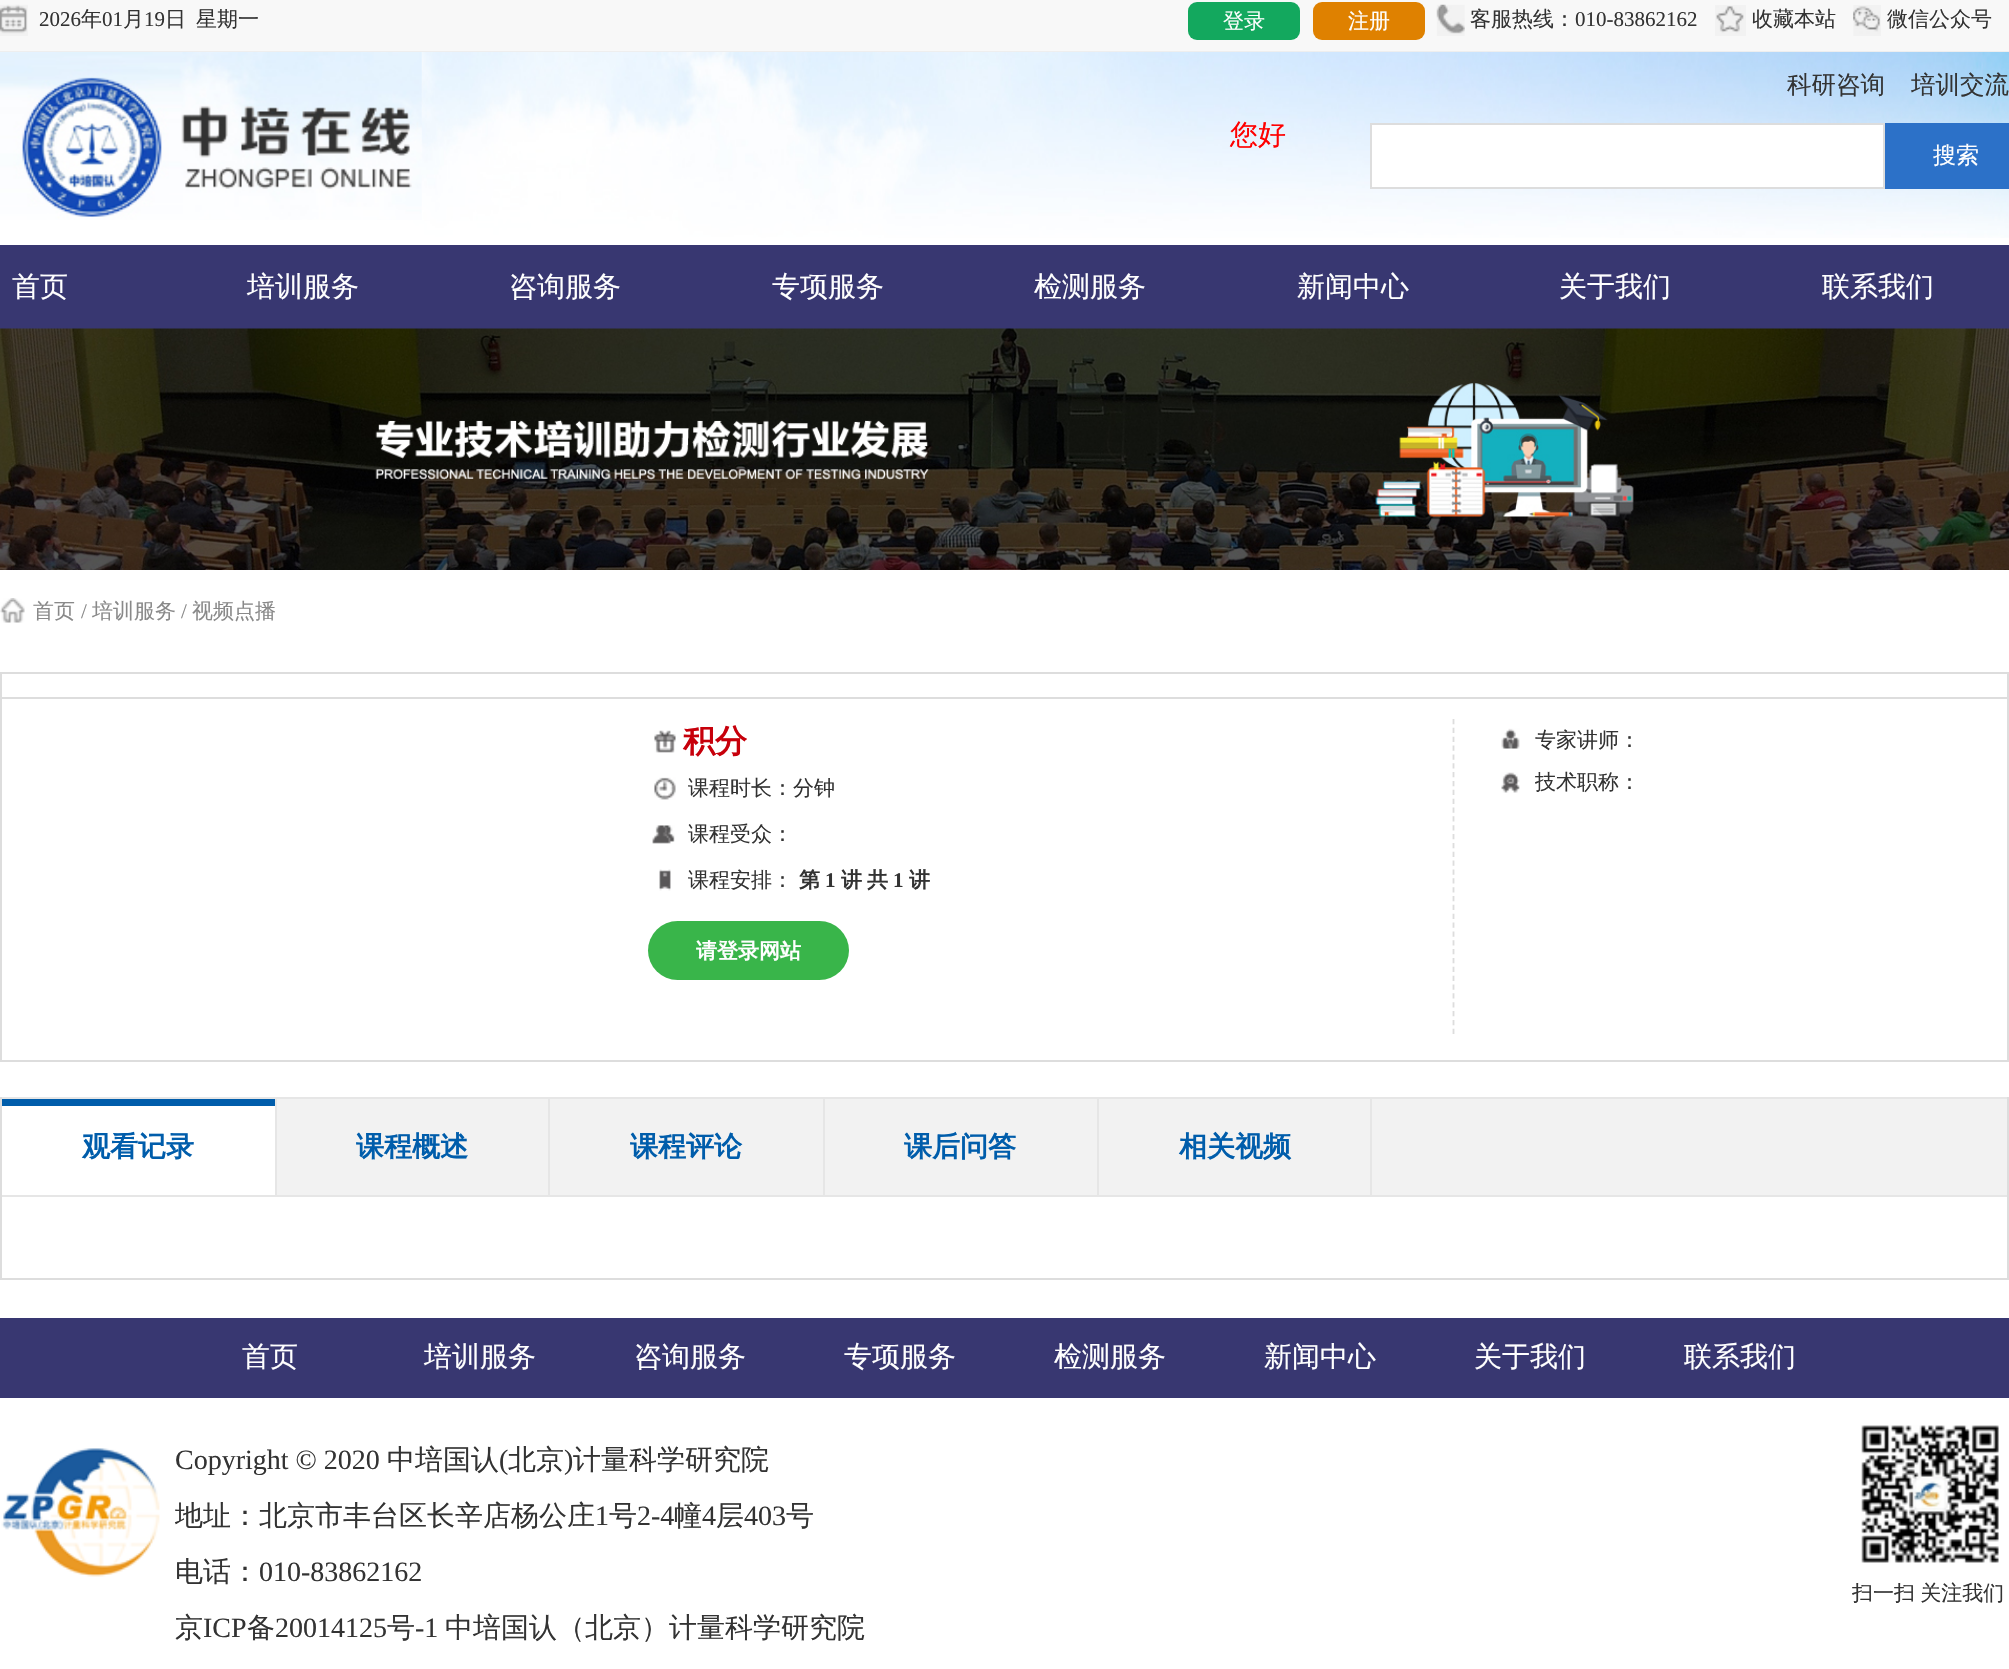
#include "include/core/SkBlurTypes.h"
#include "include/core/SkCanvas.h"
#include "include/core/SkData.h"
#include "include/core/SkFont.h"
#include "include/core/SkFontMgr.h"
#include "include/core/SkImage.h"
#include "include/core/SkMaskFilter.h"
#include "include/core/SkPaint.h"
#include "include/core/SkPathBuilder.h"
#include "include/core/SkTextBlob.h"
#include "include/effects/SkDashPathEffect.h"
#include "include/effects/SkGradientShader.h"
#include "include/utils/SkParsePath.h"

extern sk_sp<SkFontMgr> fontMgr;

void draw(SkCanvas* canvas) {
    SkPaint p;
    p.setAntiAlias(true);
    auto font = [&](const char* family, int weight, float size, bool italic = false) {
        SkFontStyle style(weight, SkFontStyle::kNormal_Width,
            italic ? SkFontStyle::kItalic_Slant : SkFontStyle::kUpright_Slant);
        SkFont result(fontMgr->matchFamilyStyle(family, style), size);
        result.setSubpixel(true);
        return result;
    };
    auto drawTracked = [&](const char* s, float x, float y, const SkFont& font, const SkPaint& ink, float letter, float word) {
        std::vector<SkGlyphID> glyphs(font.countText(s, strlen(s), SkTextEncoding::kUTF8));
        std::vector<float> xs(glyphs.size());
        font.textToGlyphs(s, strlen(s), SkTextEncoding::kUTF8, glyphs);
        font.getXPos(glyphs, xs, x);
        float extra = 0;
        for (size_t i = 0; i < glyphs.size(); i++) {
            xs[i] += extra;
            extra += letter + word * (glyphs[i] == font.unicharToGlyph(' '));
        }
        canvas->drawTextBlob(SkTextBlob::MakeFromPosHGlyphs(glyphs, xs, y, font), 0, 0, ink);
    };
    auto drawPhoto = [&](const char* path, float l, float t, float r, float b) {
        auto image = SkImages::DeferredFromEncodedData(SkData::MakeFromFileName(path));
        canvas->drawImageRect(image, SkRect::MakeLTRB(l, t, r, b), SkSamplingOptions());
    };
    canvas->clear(0xFFFFFFFF);
    p.setColor(0xFFF8F8F8);
    canvas->drawRect(SkRect::MakeLTRB(0, 0, 2009, 51), p);
    p.setColor(0xFFEEEEEE);
    canvas->drawRect(SkRect::MakeLTRB(0, 51, 2009, 52), p);
    drawPhoto("media/1.png", 0, 4, 28, 36);
    auto font1 = font("Liberation Serif", 400, 21);
    p.setColor(0xFF333333);
    canvas->drawString("2026", 39, 26, font1, p);
    auto font2 = font("WenQuanYi Zen Hei", 500, 21);
    canvas->drawString("年", 81, 26, font2, p);
    canvas->drawString("01", 102, 26, font1, p);
    canvas->drawString("月", 123, 26, font2, p);
    canvas->drawString("19", 144, 26, font1, p);
    canvas->drawString("日", 165, 26, font2, p);
    canvas->drawString("星期一", 196, 26, font2, p);
    p.setColor(0xFF13A85E);
    canvas->drawRoundRect(SkRect::MakeLTRB(1188, 2, 1300, 40), 9, 9, p);
    p.setColor(0xFFFFFFFF);
    canvas->drawString("登录", 1223, 28, font2, p);
    p.setColor(0xFFDF8100);
    canvas->drawRoundRect(SkRect::MakeLTRB(1313, 2, 1425, 40), 9, 9, p);
    p.setColor(0xFFFFFFFF);
    canvas->drawString("注册", 1348, 28, font2, p);
    drawPhoto("media/2.png", 1436, 4, 1465, 36);
    p.setColor(0xFF333333);
    canvas->drawString("客服热线：", 1470, 26, font2, p);
    canvas->drawString("010-83862162", 1575, 26, font1, p);
    drawPhoto("media/3.png", 1715, 5, 1746, 36);
    canvas->drawString("收藏本站", 1752, 26, font2, p);
    drawPhoto("media/4.png", 1853, 5, 1881, 36);
    canvas->drawString("微信公众号", 1887, 26, font2, p);
    drawPhoto("media/5.png", 0, 52, 2009, 238);
    drawPhoto("media/6.png", 0, 52, 422, 220);
    auto font3 = font("WenQuanYi Zen Hei", 500, 28);
    p.setColor(0xFFFF0000);
    canvas->drawString("您好", 1230, 144, font3, p);
    auto font4 = font("WenQuanYi Zen Hei", 500, 24.5f);
    p.setColor(0xFF333333);
    canvas->drawString("科研咨询", 1787, 93, font4, p);
    canvas->drawString("培训交流", 1911, 93, font4, p);
    p.setColor(0xFFFFFFFF);
    canvas->drawRect(SkRect::MakeLTRB(1371, 124, 1884, 188), p);
    p.setStyle(SkPaint::kStroke_Style);
    p.setStrokeWidth(2);
    p.setColor(0xFFDDDDDD);
    canvas->drawRect(SkRect::MakeLTRB(1371, 124, 1884, 188), p);
    p.setStyle(SkPaint::kFill_Style);
    p.setColor(0xFF2C71C8);
    canvas->drawRect(SkRect::MakeLTRB(1885, 123, 2009, 189), p);
    auto font5 = font("WenQuanYi Zen Hei", 500, 23);
    p.setColor(0xFFFFFFFF);
    canvas->drawString("搜索", 1933, 163, font5, p);
    p.setColor(0xFF383771);
    canvas->drawRect(SkRect::MakeLTRB(0, 245, 2009, 329), p);
    p.setColor(0xFFFFFFFF);
    {
        const struct { const char* s; float x, y; } items[] = {
            {"首页", 12, 296},
            {"培训服务", 247, 296},
            {"咨询服务", 509, 296},
            {"专项服务", 772, 296},
            {"检测服务", 1034, 296},
            {"新闻中心", 1297, 296},
            {"关于我们", 1559, 296},
            {"联系我们", 1822, 296},
        };
        for (auto [s, x, y] : items) {
            canvas->drawString(s, x, y, font3, p);
        }
    }
    drawPhoto("media/7.png", 0, 328, 2009, 570);
    drawPhoto("media/8.png", 0, 598, 25, 623);
    p.setColor(0xFF898989);
    canvas->drawString("首页", 33, 618, font2, p);
    canvas->drawString("/", 81, 618, font1, p);
    canvas->drawString("培训服务", 92, 618, font2, p);
    canvas->drawString("/", 181, 618, font1, p);
    canvas->drawString("视频点播", 192, 618, font2, p);
    p.setStyle(SkPaint::kStroke_Style);
    p.setColor(0xFFDDDDDD);
    canvas->drawRect(SkRect::MakeLTRB(1, 673, 2008, 1061), p);
    p.setStyle(SkPaint::kFill_Style);
    canvas->drawRect(SkRect::MakeLTRB(2, 697, 2007, 699), p);
    drawPhoto("media/9.png", 654, 730, 676, 753);
    auto font6 = font("WenQuanYi Zen Hei", 700, 32);
    p.setColor(0xFFC7000B);
    canvas->drawString("积分", 683, 752, font6, p);
    drawPhoto("media/10.png", 654, 777, 676, 800);
    p.setColor(0xFF333333);
    canvas->drawString("课程时长：分钟", 688, 795, font2, p);
    drawPhoto("media/11.png", 652, 825, 675, 844);
    canvas->drawString("课程受众：", 688, 841, font2, p);
    drawPhoto("media/12.png", 659, 869, 671, 891);
    canvas->drawString("课程安排：", 688, 887, font2, p);
    auto font7 = font("WenQuanYi Zen Hei", 700, 21);
    canvas->drawString("第", 799, 887, font7, p);
    auto font8 = font("Liberation Serif", 700, 21);
    canvas->drawString("1", 825, 887, font8, p);
    canvas->drawString("讲", 841, 887, font7, p);
    canvas->drawString("共", 867, 887, font7, p);
    canvas->drawString("1", 893, 887, font8, p);
    canvas->drawString("讲", 909, 887, font7, p);
    p.setColor(0xFF39B54A);
    canvas->drawRoundRect(SkRect::MakeLTRB(648, 921, 849, 980), 29.5f, 29.5f, p);
    p.setColor(0xFFFFFFFF);
    canvas->drawString("请登录网站", 696, 958, font7, p);
    p.setStyle(SkPaint::kStroke_Style);
    p.setStrokeWidth(1.8f);
    p.setColor(0xFFDDDDDD);
    p.setPathEffect(SkDashPathEffect::Make({{5.25f, 3.6f}}, 0));
    canvas->drawPath(SkPathBuilder().moveTo(1453.5f, 719).lineTo(1453.5f, 1034).detach(), p);
    p.setPathEffect(nullptr);
    drawPhoto("media/13.png", 1501, 728, 1520, 749);
    p.setStyle(SkPaint::kFill_Style);
    p.setColor(0xFF333333);
    canvas->drawString("专家讲师：", 1535, 747, font2, p);
    drawPhoto("media/14.png", 1501, 772, 1520, 793);
    canvas->drawString("技术职称：", 1535, 789, font2, p);
    {
        const struct { float l, t, r, b; SkColor color; } items[] = {
            {2007, 1097, 2009, 1279, 0xFFDDDDDD},
            {0, 1278, 2009, 1280, 0xFFDDDDDD},
            {0, 1097, 2, 1279, 0xFFDDDDDD},
            {277, 1099, 2007, 1195, 0xFFF2F2F2},
            {2, 1097, 2007, 1099, 0xFFE6E6E6},
            {2, 1195, 2007, 1197, 0xFFE6E6E6},
            {275, 1099, 277, 1195, 0xFFE6E6E6},
            {2, 1099, 275, 1106, 0xFF005DAB},
        };
        for (auto [l, t, r, b, color] : items) {
            p.setColor(color);
            canvas->drawRect(SkRect::MakeLTRB(l, t, r, b), p);
        }
    }
    auto font9 = font("WenQuanYi Zen Hei", 700, 28);
    canvas->drawString("观看记录", 82, 1156, font9, p);
    p.setColor(0xFFE6E6E6);
    canvas->drawRect(SkRect::MakeLTRB(548, 1099, 550, 1195), p);
    p.setColor(0xFF005DAB);
    canvas->drawString("课程概述", 356, 1156, font9, p);
    p.setColor(0xFFE6E6E6);
    canvas->drawRect(SkRect::MakeLTRB(823, 1099, 825, 1195), p);
    p.setColor(0xFF005DAB);
    canvas->drawString("课程评论", 630, 1156, font9, p);
    p.setColor(0xFFE6E6E6);
    canvas->drawRect(SkRect::MakeLTRB(1097, 1099, 1099, 1195), p);
    p.setColor(0xFF005DAB);
    canvas->drawString("课后问答", 904, 1156, font9, p);
    p.setColor(0xFFE6E6E6);
    canvas->drawRect(SkRect::MakeLTRB(1370, 1099, 1372, 1195), p);
    p.setColor(0xFF005DAB);
    canvas->drawString("相关视频", 1179, 1156, font9, p);
    p.setColor(0xFF383771);
    canvas->drawRect(SkRect::MakeLTRB(0, 1318, 2009, 1398), p);
    p.setColor(0xFFFFFFFF);
    {
        const struct { const char* s; float x, y; } items[] = {
            {"首页", 242, 1366},
            {"培训服务", 424, 1366},
            {"咨询服务", 634, 1366},
            {"专项服务", 844, 1366},
            {"检测服务", 1054, 1366},
            {"新闻中心", 1264, 1366},
            {"关于我们", 1474, 1366},
            {"联系我们", 1684, 1366},
        };
        for (auto [s, x, y] : items) {
            canvas->drawString(s, x, y, font3, p);
        }
    }
    drawPhoto("media/15.png", 1, 1448, 160, 1577);
    auto font10 = font("Liberation Serif", 400, 28);
    p.setColor(0xFF333333);
    canvas->drawString("Copyright © 2020", 175, 1469, font10, p);
    canvas->drawString("中培国认", 387, 1469, font3, p);
    canvas->drawString("(", 499, 1469, font10, p);
    canvas->drawString("北京", 508, 1469, font3, p);
    canvas->drawString(")", 564, 1469, font10, p);
    canvas->drawString("计量科学研究院", 573, 1469, font3, p);
    canvas->drawString("地址：北京市丰台区长辛店杨公庄", 175, 1525, font3, p);
    canvas->drawString("1", 595, 1525, font10, p);
    canvas->drawString("号", 609, 1525, font3, p);
    canvas->drawString("2-4", 637, 1525, font10, p);
    canvas->drawString("幢", 674, 1525, font3, p);
    canvas->drawString("4", 702, 1525, font10, p);
    canvas->drawString("层", 716, 1525, font3, p);
    canvas->drawString("403", 744, 1525, font10, p);
    canvas->drawString("号", 786, 1525, font3, p);
    canvas->drawString("电话：", 175, 1581, font3, p);
    canvas->drawString("010-83862162", 259, 1581, font10, p);
    canvas->drawString("京", 175, 1637, font3, p);
    canvas->drawString("ICP", 203, 1637, font10, p);
    canvas->drawString("备", 247, 1637, font3, p);
    canvas->drawString("20014125", 275, 1637, font10, p);
    canvas->drawString("号", 387, 1637, font3, p);
    canvas->drawString("-1", 415, 1637, font10, p);
    canvas->drawString("中培国认（北京）计量科学研究院", 445, 1637, font3, p);
    drawPhoto("media/16.png", 1861, 1425, 1999, 1563);
    drawTracked("扫一扫 关注我们", 1852, 1600, font2, p, 0, -1);
}
